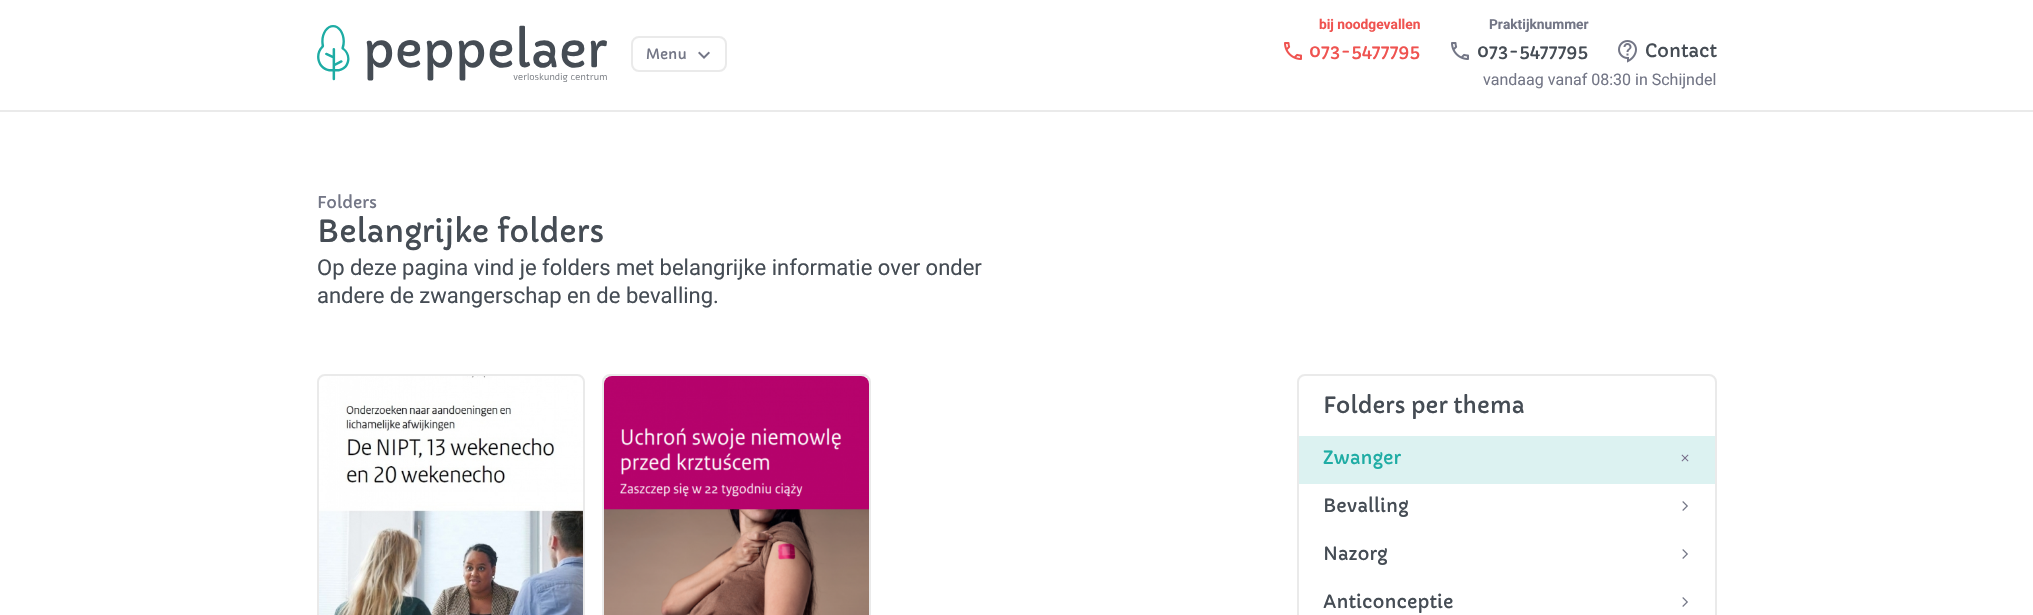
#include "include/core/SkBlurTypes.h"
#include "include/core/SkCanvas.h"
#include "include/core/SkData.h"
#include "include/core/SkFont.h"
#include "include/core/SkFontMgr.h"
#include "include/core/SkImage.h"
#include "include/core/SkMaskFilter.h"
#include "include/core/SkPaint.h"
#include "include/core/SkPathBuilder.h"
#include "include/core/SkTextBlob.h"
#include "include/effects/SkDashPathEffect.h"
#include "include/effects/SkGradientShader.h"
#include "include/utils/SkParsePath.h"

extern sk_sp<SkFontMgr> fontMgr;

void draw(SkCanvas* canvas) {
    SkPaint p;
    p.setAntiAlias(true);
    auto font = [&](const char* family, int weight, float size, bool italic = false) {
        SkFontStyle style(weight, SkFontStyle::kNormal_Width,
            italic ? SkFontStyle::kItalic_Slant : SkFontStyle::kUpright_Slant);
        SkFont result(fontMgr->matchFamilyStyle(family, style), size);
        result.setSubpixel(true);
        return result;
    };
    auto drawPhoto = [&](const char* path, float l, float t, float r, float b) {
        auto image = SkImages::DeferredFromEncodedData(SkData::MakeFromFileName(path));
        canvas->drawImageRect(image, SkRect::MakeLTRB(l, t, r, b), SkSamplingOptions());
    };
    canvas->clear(0xFFFFFFFF);
    p.setColor(0xFFEAEAEA);
    canvas->drawRect(SkRect::MakeLTRB(0, 110, 2033, 112), p);
    drawPhoto("media/1.png", 317, 25, 607, 82);
    p.setStyle(SkPaint::kStroke_Style);
    p.setStrokeWidth(2);
    canvas->drawRoundRect(SkRect::MakeLTRB(632, 37, 726, 71), 7, 7, p);
    auto font1 = font("Capriola", 400, 14);
    p.setStyle(SkPaint::kFill_Style);
    p.setColor(0xFF737686);
    canvas->drawString("Menu", 646, 59, font1, p);
    drawPhoto("media/2.png", 698, 51, 710, 59);
    auto font2 = font("Roboto", 700, 13.75f);
    p.setColor(0xFFEF5350);
    canvas->drawString("bij noodgevallen", 1319, 29, font2, p);
    drawPhoto("media/3.png", 1284, 42, 1302, 60);
    auto font3 = font("Capriola", 400, 18);
    canvas->drawString("073-5477795", 1309, 57, font3, p);
    p.setColor(0xFF737686);
    canvas->drawString("Praktijknummer", 1489, 29, font2, p);
    drawPhoto("media/4.png", 1451, 42, 1469, 60);
    p.setColor(0xFF454C54);
    canvas->drawString("073-5477795", 1477, 57, font3, p);
    drawPhoto("media/5.png", 1618, 40, 1637, 63);
    canvas->drawString("Contact", 1645, 57, font3, p);
    auto font4 = font("Roboto", 400, 16);
    p.setColor(0xFF737686);
    canvas->drawString("vandaag vanaf 08:30 in Schijndel", 1483, 85, font4, p);
    auto font5 = font("Capriola", 400, 16);
    canvas->drawString("Folders", 317, 208, font5, p);
    auto font6 = font("Capriola", 400, 30);
    p.setColor(0xFF454C54);
    canvas->drawString("Belangrijke folders", 317, 242, font6, p);
    auto font7 = font("Roboto", 400, 22);
    canvas->drawString("Op deze pagina vind je folders met belangrijke informatie over onder", 317, 275, font7, p);
    canvas->drawString("andere de zwangerschap en de bevalling.", 317, 303, font7, p);
    p.setStyle(SkPaint::kStroke_Style);
    p.setColor(0xFFEAEAEA);
    canvas->drawRoundRect(SkRect::MakeLTRB(318, 375, 584, 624), 7, 7, p);
    drawPhoto("media/6.png", 319, 376, 583, 615);
    canvas->drawRoundRect(SkRect::MakeLTRB(603, 375, 870, 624), 7, 7, p);
    drawPhoto("media/7.png", 604, 376, 869, 615);
    canvas->drawRoundRect(SkRect::MakeLTRB(1298, 375, 1716, 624), 7, 7, p);
    auto font8 = font("Capriola", 400, 22);
    p.setStyle(SkPaint::kFill_Style);
    p.setColor(0xFF454C54);
    canvas->drawString("Folders per thema", 1323, 413, font8, p);
    p.setColor(0xFFDCF2F1);
    canvas->drawRect(SkRect::MakeLTRB(1299, 436, 1715, 484), p);
    p.setColor(0xFF1EACA4);
    canvas->drawString("Zwanger", 1323, 464, font3, p);
    drawPhoto("media/8.png", 1681, 454, 1689, 462);
    p.setColor(0xFF454C54);
    canvas->drawString("Bevalling", 1323, 512, font3, p);
    drawPhoto("media/9.png", 1682, 501, 1688, 511);
    canvas->drawString("Nazorg", 1323, 560, font3, p);
    drawPhoto("media/9.png", 1682, 549, 1688, 559);
    canvas->drawString("Anticonceptie", 1323, 608, font3, p);
    drawPhoto("media/9.png", 1682, 597, 1688, 607);
}
